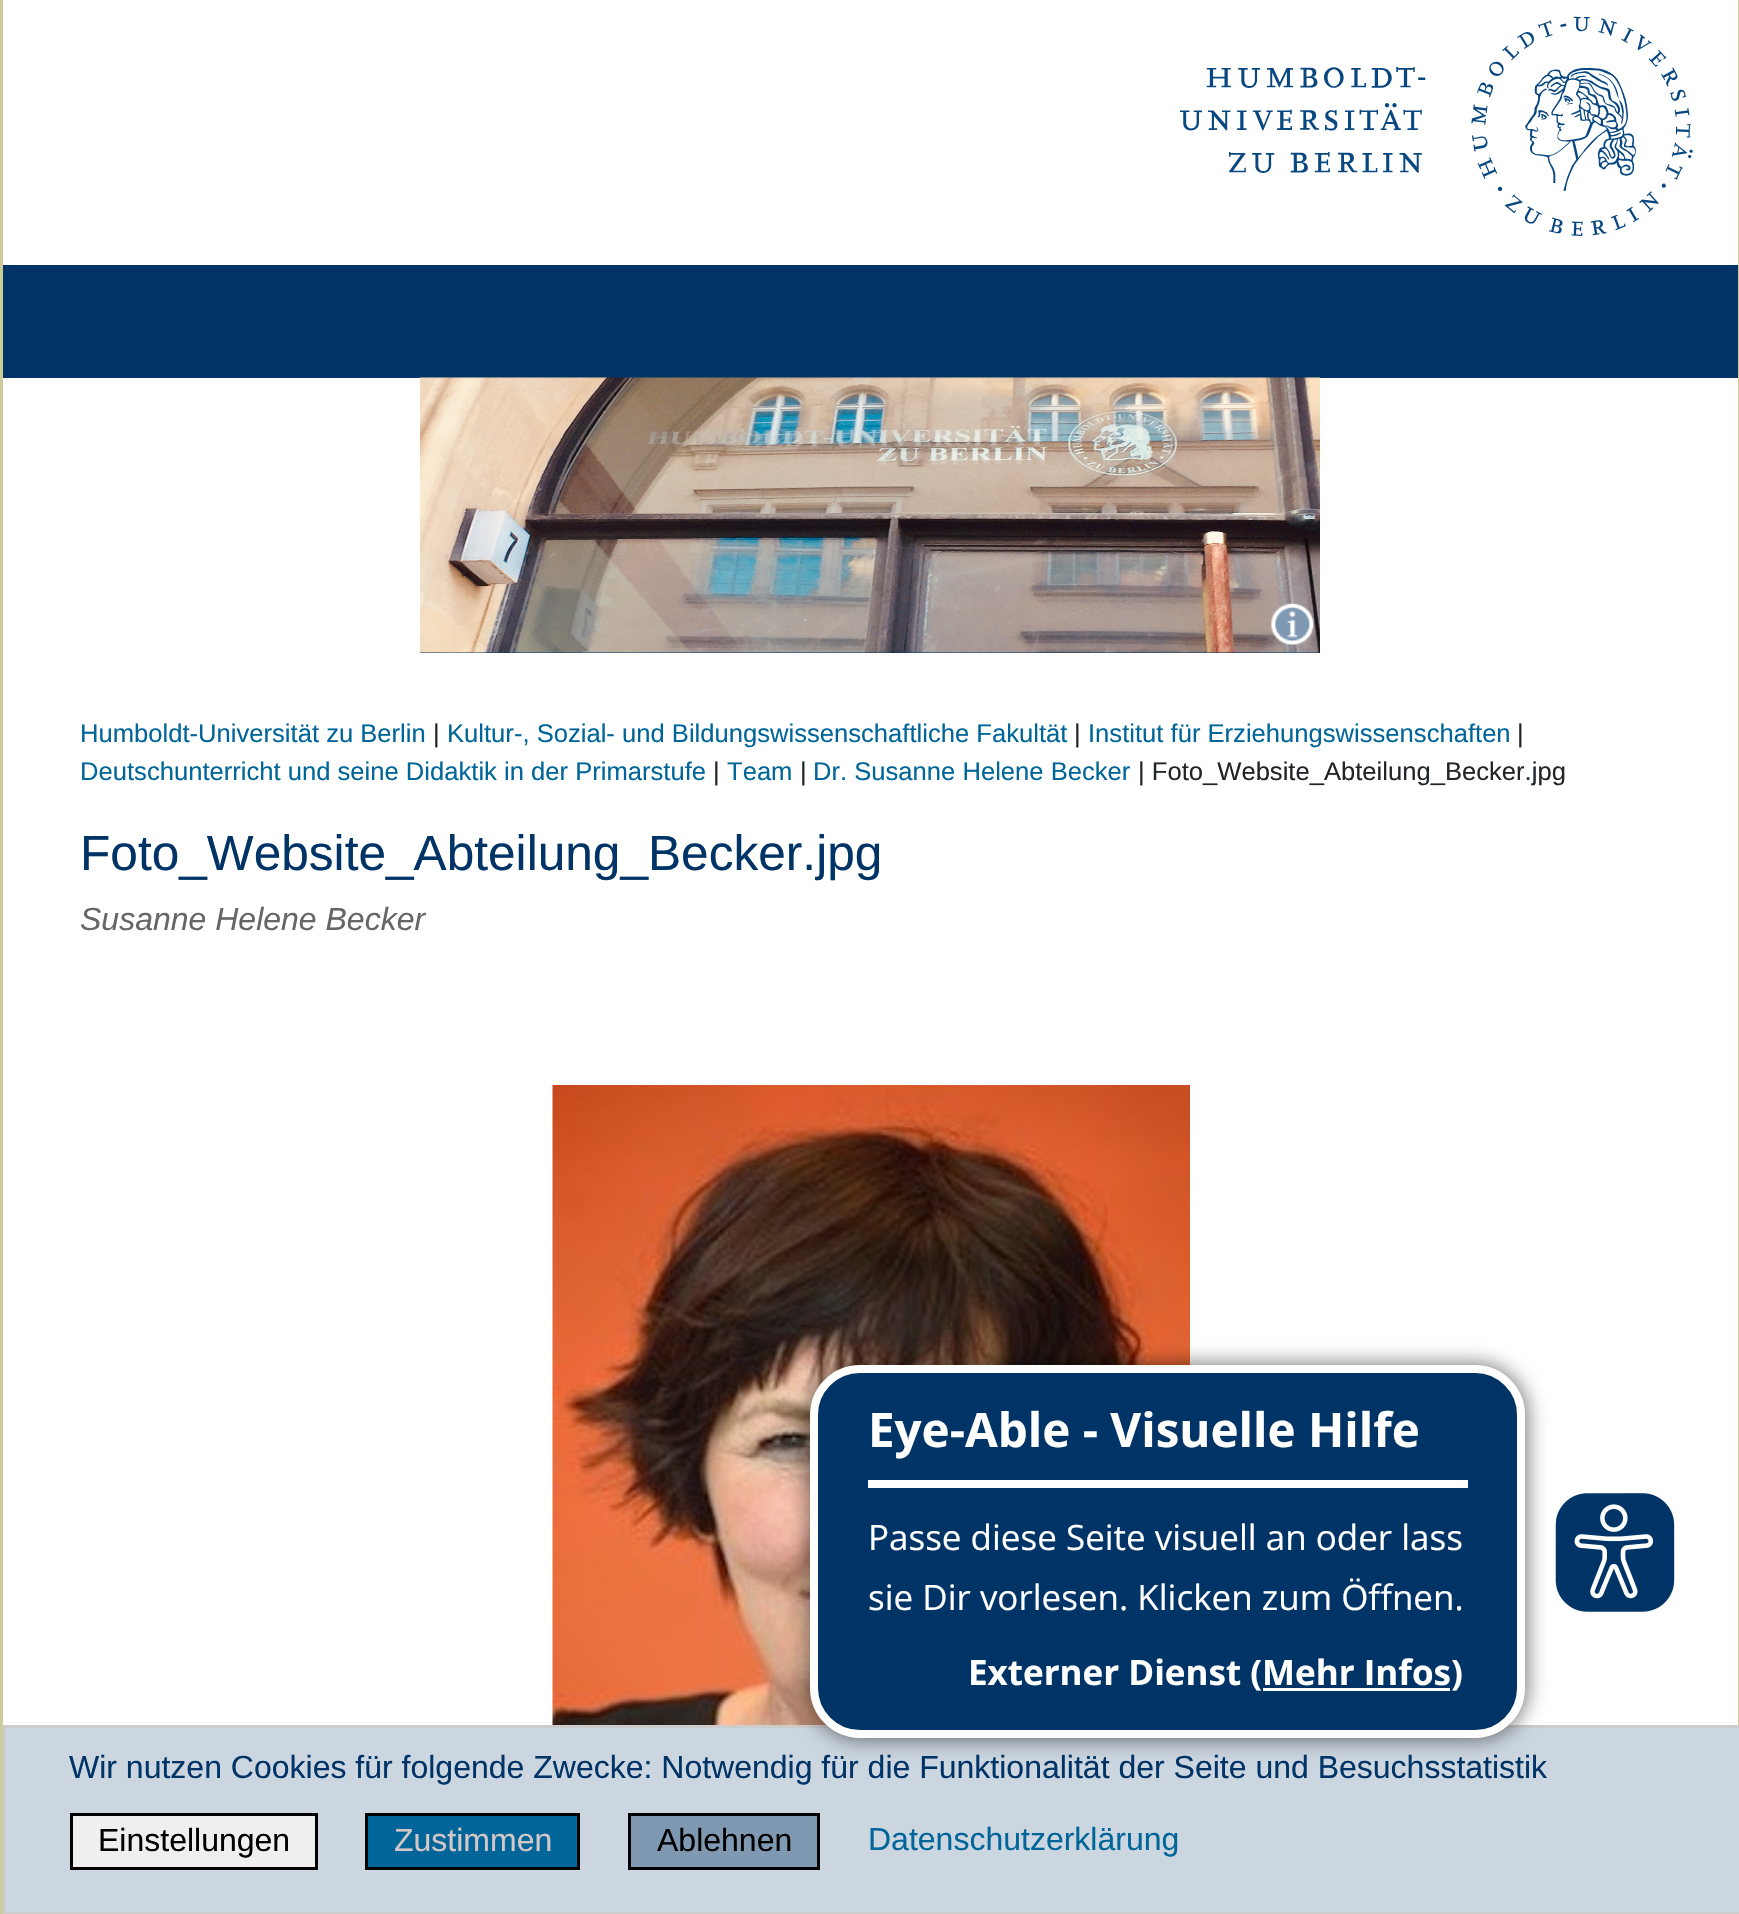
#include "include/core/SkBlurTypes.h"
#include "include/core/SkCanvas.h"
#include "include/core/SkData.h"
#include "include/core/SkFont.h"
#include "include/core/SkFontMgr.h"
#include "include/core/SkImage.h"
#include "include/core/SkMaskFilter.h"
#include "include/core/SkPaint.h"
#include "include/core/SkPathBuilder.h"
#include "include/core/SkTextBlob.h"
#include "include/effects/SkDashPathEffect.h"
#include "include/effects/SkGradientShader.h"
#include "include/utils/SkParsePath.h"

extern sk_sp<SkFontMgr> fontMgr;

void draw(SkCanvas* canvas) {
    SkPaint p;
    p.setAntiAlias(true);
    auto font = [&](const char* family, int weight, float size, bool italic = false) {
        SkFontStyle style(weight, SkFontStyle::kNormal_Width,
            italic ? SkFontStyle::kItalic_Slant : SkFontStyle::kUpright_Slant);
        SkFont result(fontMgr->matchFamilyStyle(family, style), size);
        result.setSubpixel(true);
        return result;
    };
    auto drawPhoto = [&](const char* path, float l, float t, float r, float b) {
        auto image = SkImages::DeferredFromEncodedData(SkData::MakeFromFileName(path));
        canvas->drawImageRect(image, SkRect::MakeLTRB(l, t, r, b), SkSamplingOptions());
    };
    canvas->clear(0xFFFFFFFF);
    drawPhoto("media/1.png", 1180, 16, 1693, 236);
    p.setColor(0xFF003366);
    canvas->drawRect(SkRect::MakeLTRB(3, 265, 1738, 378), p);
    canvas->drawRect(SkRect::MakeLTRB(420, 652, 1320, 653), p);
    drawPhoto("media/2.png", 420, 377, 1320, 653);
    drawPhoto("media/3.png", 1271, 603, 1314, 645);
    p.setColor(0xFFCCCC99);
    canvas->drawRect(SkRect::MakeLTRB(1738, 0, 1739, 1725), p);
    canvas->drawRect(SkRect::MakeLTRB(0, 0, 3, 1914), p);
    auto font1 = font("Liberation Sans", 400, 25.6f);
    p.setColor(0xFF006699);
    canvas->drawString("Humboldt-Universität zu Berlin", 80, 742, font1, p);
    p.setColor(0xFF212529);
    canvas->drawString("|", 433, 742, font1, p);
    p.setColor(0xFF006699);
    canvas->drawString("Kultur-, Sozial- und Bildungswissenschaftliche Fakultät", 447, 742, font1, p);
    p.setColor(0xFF212529);
    canvas->drawString("|", 1074, 742, font1, p);
    p.setColor(0xFF006699);
    canvas->drawString("Institut für Erziehungswissenschaften", 1088, 742, font1, p);
    p.setColor(0xFF212529);
    canvas->drawString("|", 1517, 742, font1, p);
    p.setColor(0xFF006699);
    canvas->drawString("Deutschunterricht und seine Didaktik in der Primarstufe", 80, 780, font1, p);
    p.setColor(0xFF212529);
    canvas->drawString("|", 713, 780, font1, p);
    p.setColor(0xFF006699);
    canvas->drawString("Team", 727, 780, font1, p);
    p.setColor(0xFF212529);
    canvas->drawString("|", 800, 780, font1, p);
    p.setColor(0xFF006699);
    canvas->drawString("Dr. Susanne Helene Becker", 813, 780, font1, p);
    p.setColor(0xFF212529);
    canvas->drawString("| Foto_Website_Abteilung_Becker.jpg", 1138, 780, font1, p);
    auto font2 = font("Liberation Sans", 400, 49.6f);
    p.setColor(0xFF003366);
    canvas->drawString("Foto_Website_Abteilung_Becker.jpg", 80, 870, font2, p);
    auto font3 = font("Liberation Sans", 400, 32, true);
    p.setColor(0xFF666666);
    canvas->drawString("Susanne Helene Becker", 80, 930, font3, p);
    drawPhoto("media/4.png", 552, 1085, 1190, 1725);
    p.setColor(0xFFCCD6E0);
    canvas->drawRect(SkRect::MakeLTRB(4.5f, 1726.5f, 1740.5f, 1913.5f), p);
    p.setStyle(SkPaint::kStroke_Style);
    p.setStrokeWidth(3);
    p.setColor(0xFFCCCCCC);
    canvas->drawRect(SkRect::MakeLTRB(4.5f, 1726.5f, 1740.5f, 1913.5f), p);
    p.setStyle(SkPaint::kFill_Style);
    p.setColor(0x80000000);
    p.setMaskFilter(SkMaskFilter::MakeBlur(kNormal_SkBlurStyle, 10));
    canvas->drawRoundRect(SkRect::MakeLTRB(808, 1363, 1528, 1740), 53, 53, p);
    p.setMaskFilter(nullptr);
    p.setColor(0xFF003366);
    canvas->drawRoundRect(SkRect::MakeLTRB(814, 1369, 1521, 1734), 46, 46, p);
    p.setStyle(SkPaint::kStroke_Style);
    p.setStrokeWidth(8);
    p.setColor(0xFFFFFFFF);
    canvas->drawRoundRect(SkRect::MakeLTRB(814, 1369, 1521, 1734), 46, 46, p);
    p.setStyle(SkPaint::kFill_Style);
    canvas->drawRect(SkRect::MakeLTRB(868, 1480, 1468, 1488), p);
    auto font4 = font("Open Sans", 700, 47.5f);
    canvas->drawString("Eye-Able - Visuelle Hilfe", 868, 1447, font4, p);
    auto font5 = font("Open Sans", 400, 35);
    canvas->drawString("Passe diese Seite visuell an oder lass", 868, 1550, font5, p);
    canvas->drawString("sie Dir vorlesen. Klicken zum Öffnen.", 868, 1610, font5, p);
    auto font6 = font("Open Sans", 700, 35);
    canvas->drawString("Externer Dienst (Mehr Infos)", 968, 1685, font6, p);
    canvas->drawRect(SkRect::MakeLTRB(1263, 1688, 1450, 1691), p);
    drawPhoto("media/5.png", 1555, 1493, 1675, 1612);
    auto font7 = font("Liberation Sans", 400, 32);
    p.setColor(0xFF003366);
    canvas->drawString("Wir nutzen Cookies für folgende Zwecke: Notwendig für die Funktionalität der Seite und Besuchsstatistik", 69, 1778, font7, p);
    p.setColor(0xFFEFEFEF);
    canvas->drawRect(SkRect::MakeLTRB(71.5f, 1814.5f, 316.5f, 1868.5f), p);
    p.setStyle(SkPaint::kStroke_Style);
    p.setStrokeWidth(3);
    p.setColor(0xFF000000);
    canvas->drawRect(SkRect::MakeLTRB(71.5f, 1814.5f, 316.5f, 1868.5f), p);
    p.setStyle(SkPaint::kFill_Style);
    canvas->drawString("Einstellungen", 98, 1851, font7, p);
    p.setColor(0xFF006699);
    canvas->drawRect(SkRect::MakeLTRB(366.5f, 1814.5f, 578.5f, 1868.5f), p);
    p.setStyle(SkPaint::kStroke_Style);
    p.setColor(0xFF000000);
    canvas->drawRect(SkRect::MakeLTRB(366.5f, 1814.5f, 578.5f, 1868.5f), p);
    p.setStyle(SkPaint::kFill_Style);
    p.setColor(0xFFD5C7C7);
    canvas->drawString("Zustimmen", 394, 1851, font7, p);
    p.setColor(0xFF8099B2);
    canvas->drawRect(SkRect::MakeLTRB(629.5f, 1814.5f, 818.5f, 1868.5f), p);
    p.setStyle(SkPaint::kStroke_Style);
    p.setColor(0xFF000000);
    canvas->drawRect(SkRect::MakeLTRB(629.5f, 1814.5f, 818.5f, 1868.5f), p);
    p.setStyle(SkPaint::kFill_Style);
    canvas->drawString("Ablehnen", 657, 1851, font7, p);
    p.setColor(0xFF006699);
    canvas->drawString("Datenschutzerklärung", 868, 1850, font7, p);
}
